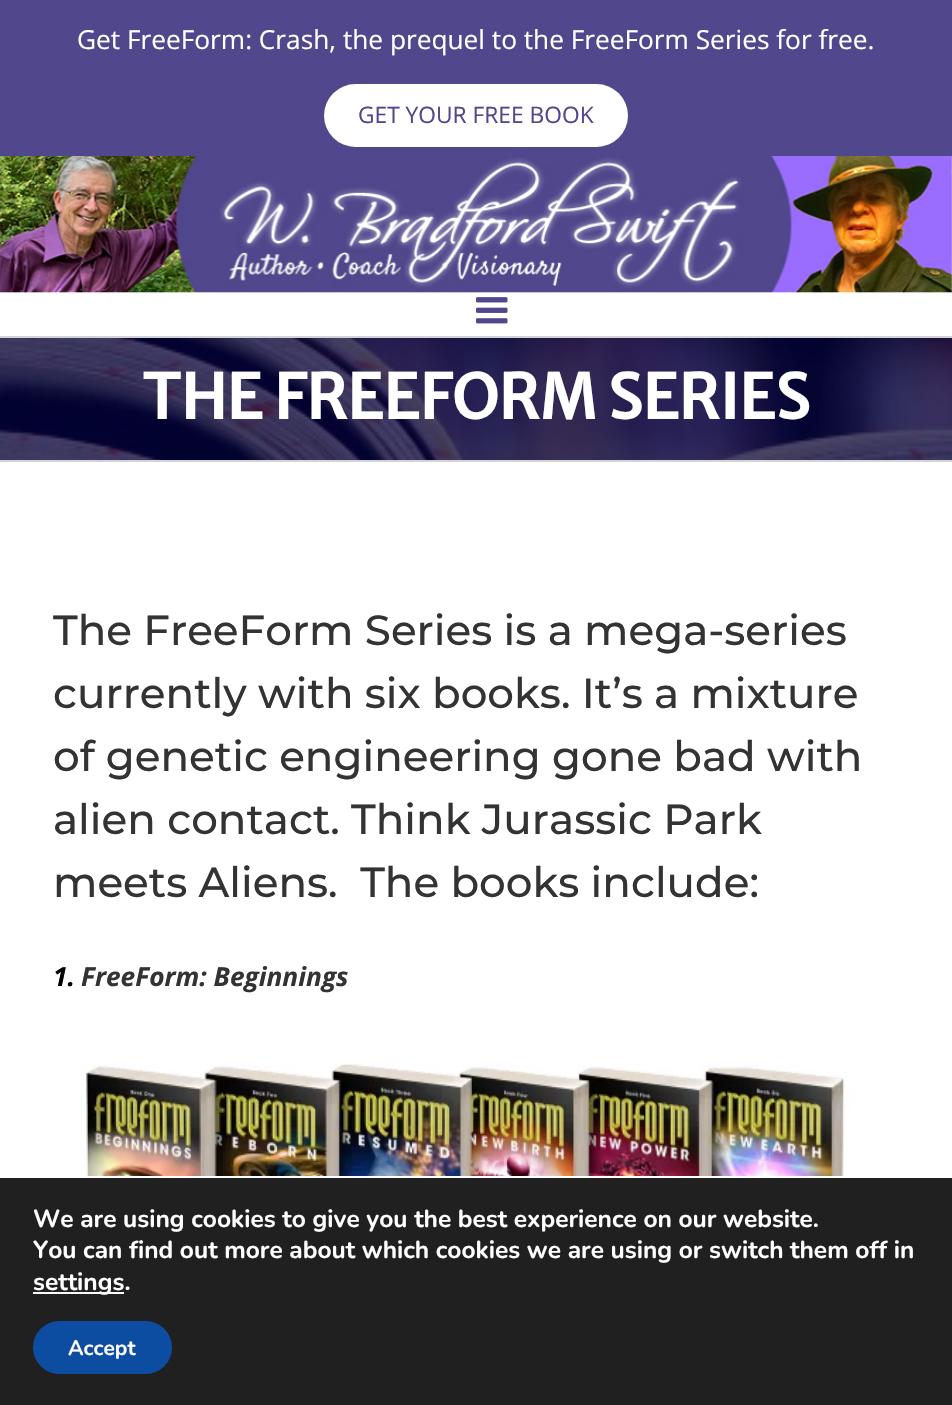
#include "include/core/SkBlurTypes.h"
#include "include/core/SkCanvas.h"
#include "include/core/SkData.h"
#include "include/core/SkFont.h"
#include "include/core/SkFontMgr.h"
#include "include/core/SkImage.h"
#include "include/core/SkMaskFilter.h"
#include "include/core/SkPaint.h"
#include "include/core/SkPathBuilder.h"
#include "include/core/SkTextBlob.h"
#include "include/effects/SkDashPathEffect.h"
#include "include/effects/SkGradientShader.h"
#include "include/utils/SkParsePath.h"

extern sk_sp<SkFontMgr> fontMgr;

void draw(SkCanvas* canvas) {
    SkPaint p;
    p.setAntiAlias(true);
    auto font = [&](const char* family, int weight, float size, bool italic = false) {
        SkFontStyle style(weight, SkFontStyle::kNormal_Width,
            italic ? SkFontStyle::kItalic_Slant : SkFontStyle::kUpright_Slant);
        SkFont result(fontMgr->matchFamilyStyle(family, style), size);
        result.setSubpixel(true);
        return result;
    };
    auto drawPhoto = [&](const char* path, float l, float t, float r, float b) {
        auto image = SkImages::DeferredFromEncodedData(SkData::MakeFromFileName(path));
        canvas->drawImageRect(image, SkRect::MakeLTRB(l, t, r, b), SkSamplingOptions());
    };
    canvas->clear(0xFFFFFFFF);
    p.setColor(0xFF50478C);
    canvas->drawRect(SkRect::MakeLTRB(0, 0, 952, 156), p);
    auto font1 = font("Open Sans", 400, 26.25f);
    p.setColor(0xFFFFFFFF);
    canvas->drawString("Get FreeForm: Crash, the prequel to the FreeForm Series for free.", 77, 49, font1, p);
    canvas->drawRoundRect(SkRect::MakeLTRB(324, 84, 628, 147), 31.5f, 31.5f, p);
    auto font2 = font("Open Sans", 400, 22.75f);
    p.setColor(0xFF50478C);
    canvas->drawString("GET YOUR FREE BOOK", 358, 123, font2, p);
    drawPhoto("media/1.png", 0, 156, 952, 293);
    drawPhoto("media/2.png", 476, 297, 508, 324);
    drawPhoto("media/3.png", 0, 338, 952, 460);
    p.setColor(0xFFD2D3D4);
    canvas->drawRect(SkRect::MakeLTRB(0, 336, 952, 338), p);
    canvas->drawRect(SkRect::MakeLTRB(0, 460, 952, 462), p);
    auto font3 = font("Merriweather Sans", 700, 61.25f);
    p.setColor(0xFFFFFFFF);
    canvas->drawString("THE FREEFORM SERIES", 142, 419, font3, p);
    auto font4 = font("Montserrat", 500, 42);
    p.setColor(0xFF333333);
    {
        const struct { const char* s; float x, y; } items[] = {
            {"The FreeForm Series is a mega-series", 53, 645},
            {"currently with six books. It’s a mixture", 53, 708},
            {"of genetic engineering gone bad with", 53, 771},
            {"alien contact. Think Jurassic Park", 53, 834},
            {"meets Aliens.  The books include:", 53, 897},
        };
        for (auto [s, x, y] : items) {
            canvas->drawString(s, x, y, font4, p);
        }
    }
    auto font5 = font("Open Sans", 700, 26.25f, true);
    p.setColor(0xFF000000);
    canvas->drawString("1.", 53, 986, font5, p);
    p.setColor(0xFF333333);
    canvas->drawString("FreeForm: Beginnings", 81, 986, font5, p);
    drawPhoto("media/4.png", 70, 1064, 856, 1176);
    p.setColor(0xFF202020);
    canvas->drawRect(SkRect::MakeLTRB(0, 1178, 952, 1405), p);
    auto font6 = font("Nunito", 700, 24.5f);
    p.setColor(0xFFFFFFFF);
    canvas->drawString("We are using cookies to give you the best experience on our website.", 33, 1227, font6, p);
    canvas->drawString("You can find out more about which cookies we are using or switch them off in", 33, 1258, font6, p);
    canvas->drawRect(SkRect::MakeLTRB(33, 1292, 124, 1294), p);
    canvas->drawString("settings.", 33, 1290, font6, p);
    p.setColor(0xFF0C4DA2);
    canvas->drawRoundRect(SkRect::MakeLTRB(33, 1321, 172, 1374), 26.5f, 26.5f, p);
    auto font7 = font("Nunito", 700, 21);
    p.setColor(0xFFFFFFFF);
    canvas->drawString("Accept", 68, 1355, font7, p);
}
